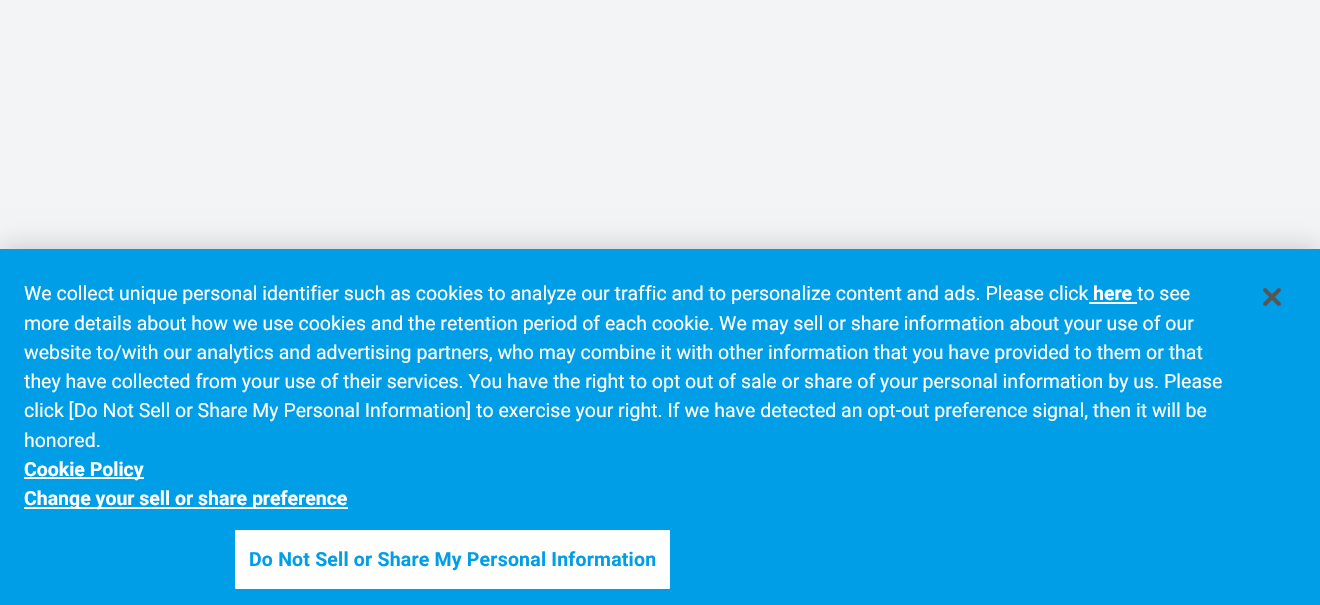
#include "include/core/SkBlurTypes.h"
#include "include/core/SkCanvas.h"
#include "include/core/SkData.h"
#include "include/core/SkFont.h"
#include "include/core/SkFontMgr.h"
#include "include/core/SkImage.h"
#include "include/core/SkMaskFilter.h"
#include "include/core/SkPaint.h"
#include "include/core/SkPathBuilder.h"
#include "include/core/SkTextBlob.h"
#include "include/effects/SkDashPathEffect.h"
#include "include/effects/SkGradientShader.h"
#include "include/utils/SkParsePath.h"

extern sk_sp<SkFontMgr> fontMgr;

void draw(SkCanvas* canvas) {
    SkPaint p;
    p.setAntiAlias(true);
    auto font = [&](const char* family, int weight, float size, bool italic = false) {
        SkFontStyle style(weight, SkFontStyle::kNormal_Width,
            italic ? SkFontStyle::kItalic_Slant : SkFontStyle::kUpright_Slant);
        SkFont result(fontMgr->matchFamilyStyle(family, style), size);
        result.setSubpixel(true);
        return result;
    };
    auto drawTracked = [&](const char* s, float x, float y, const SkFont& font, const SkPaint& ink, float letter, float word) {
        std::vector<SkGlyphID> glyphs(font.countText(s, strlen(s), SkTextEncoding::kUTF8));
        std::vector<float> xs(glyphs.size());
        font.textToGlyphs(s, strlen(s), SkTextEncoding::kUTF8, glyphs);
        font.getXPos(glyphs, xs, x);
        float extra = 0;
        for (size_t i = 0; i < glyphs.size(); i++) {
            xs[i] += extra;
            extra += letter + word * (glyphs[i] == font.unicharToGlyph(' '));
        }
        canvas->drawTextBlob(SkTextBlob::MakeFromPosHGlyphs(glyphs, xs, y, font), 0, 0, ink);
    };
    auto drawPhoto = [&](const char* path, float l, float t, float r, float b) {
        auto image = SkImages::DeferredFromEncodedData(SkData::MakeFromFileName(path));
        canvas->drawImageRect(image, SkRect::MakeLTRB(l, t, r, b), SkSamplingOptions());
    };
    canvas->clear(0xFFF3F4F5);
    p.setColor(0x33000000);
    p.setMaskFilter(SkMaskFilter::MakeBlur(kNormal_SkBlurStyle, 13.5f));
    canvas->drawRect(SkRect::MakeLTRB(0, 249, 1320, 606), p);
    p.setMaskFilter(nullptr);
    p.setColor(0xFF009EE7);
    canvas->drawRect(SkRect::MakeLTRB(0, 249, 1320, 605), p);
    auto font1 = font("Roboto", 400, 19.5f);
    p.setColor(0xFFFFFFFF);
    canvas->drawString("We collect unique personal identifier such as cookies to analyze our traffic and to personalize content and ads. Please click", 24, 300, font1, p);
    auto font2 = font("Roboto", 700, 19.5f);
    canvas->drawString("here", 1093, 300, font2, p);
    canvas->drawRect(SkRect::MakeLTRB(1089, 302, 1137, 304), p);
    {
        const struct { const char* s; float x, y; } items[] = {
            {"to see", 1137, 300},
            {"more details about how we use cookies and the retention period of each cookie. We may sell or share information about your use of our", 24, 330},
            {"website to/with our analytics and advertising partners, who may combine it with other information that you have provided to them or that", 24, 359},
            {"they have collected from your use of their services. You have the right to opt out of sale or share of your personal information by us. Please", 24, 388},
            {"click [Do Not Sell or Share My Personal Information] to exercise your right. If we have detected an opt-out preference signal, then it will be", 24, 417},
            {"honored.", 24, 447},
        };
        for (auto [s, x, y] : items) {
            canvas->drawString(s, x, y, font1, p);
        }
    }
    canvas->drawRect(SkRect::MakeLTRB(24, 477, 144, 479), p);
    canvas->drawString("Cookie Policy", 24, 476, font2, p);
    canvas->drawRect(SkRect::MakeLTRB(24, 507, 348, 509), p);
    canvas->drawString("Change your sell or share preference", 24, 505, font2, p);
    canvas->drawRoundRect(SkRect::MakeLTRB(234, 529, 671, 590), 2, 2, p);
    p.setStyle(SkPaint::kStroke_Style);
    p.setStrokeWidth(2);
    p.setColor(0xFF009EE7);
    canvas->drawRoundRect(SkRect::MakeLTRB(234, 529, 671, 590), 2, 2, p);
    p.setStyle(SkPaint::kFill_Style);
    drawTracked("Do Not Sell or Share My Personal Information", 249, 566, font2, p, 0.2f, 0);
    drawPhoto("media/1.png", 1263, 288, 1281, 306);
}
